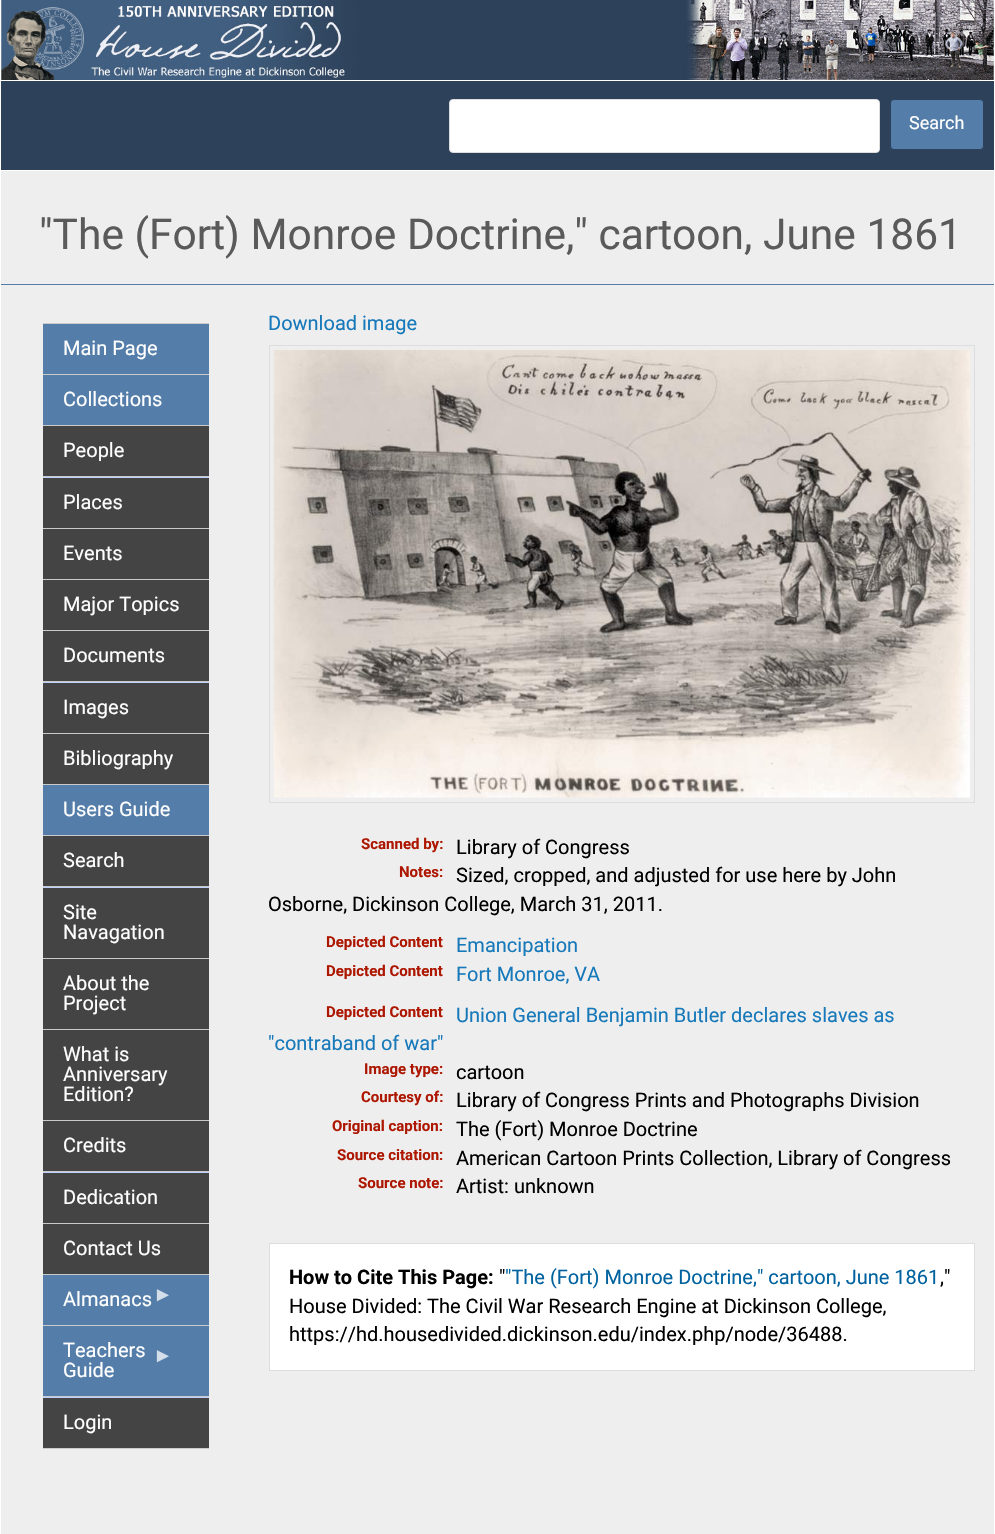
#include "include/core/SkBlurTypes.h"
#include "include/core/SkCanvas.h"
#include "include/core/SkData.h"
#include "include/core/SkFont.h"
#include "include/core/SkFontMgr.h"
#include "include/core/SkImage.h"
#include "include/core/SkMaskFilter.h"
#include "include/core/SkPaint.h"
#include "include/core/SkPathBuilder.h"
#include "include/core/SkTextBlob.h"
#include "include/effects/SkDashPathEffect.h"
#include "include/effects/SkGradientShader.h"
#include "include/utils/SkParsePath.h"

extern sk_sp<SkFontMgr> fontMgr;

void draw(SkCanvas* canvas) {
    SkPaint p;
    p.setAntiAlias(true);
    auto font = [&](const char* family, int weight, float size, bool italic = false) {
        SkFontStyle style(weight, SkFontStyle::kNormal_Width,
            italic ? SkFontStyle::kItalic_Slant : SkFontStyle::kUpright_Slant);
        SkFont result(fontMgr->matchFamilyStyle(family, style), size);
        result.setSubpixel(true);
        return result;
    };
    auto drawPhoto = [&](const char* path, float l, float t, float r, float b) {
        auto image = SkImages::DeferredFromEncodedData(SkData::MakeFromFileName(path));
        canvas->drawImageRect(image, SkRect::MakeLTRB(l, t, r, b), SkSamplingOptions());
    };
    canvas->clear(0xFFFFFFFF);
    drawPhoto("media/1.png", 1, 0, 994, 80);
    p.setColor(0xFF2D415A);
    canvas->drawRect(SkRect::MakeLTRB(1, 81, 994, 170), p);
    p.setColor(0xFFFFFFFF);
    canvas->drawRoundRect(SkRect::MakeLTRB(449.5f, 99.5f, 879.5f, 152.5f), 3.5f, 3.5f, p);
    p.setStyle(SkPaint::kStroke_Style);
    p.setStrokeWidth(1);
    p.setColor(0xFFDDDDDD);
    canvas->drawRoundRect(SkRect::MakeLTRB(449.5f, 99.5f, 879.5f, 152.5f), 3.5f, 3.5f, p);
    p.setStyle(SkPaint::kFill_Style);
    p.setColor(0xFF547EA9);
    canvas->drawRoundRect(SkRect::MakeLTRB(890.5f, 99.5f, 983.5f, 149.5f), 3.5f, 3.5f, p);
    p.setStyle(SkPaint::kStroke_Style);
    p.setColor(0xFF2D415A);
    canvas->drawRoundRect(SkRect::MakeLTRB(890.5f, 99.5f, 983.5f, 149.5f), 3.5f, 3.5f, p);
    auto font1 = font("Roboto", 400, 18);
    p.setStyle(SkPaint::kFill_Style);
    p.setColor(0xFFFFFFFF);
    canvas->drawString("Search", 909, 129, font1, p);
    p.setColor(0xFFEEEEEE);
    canvas->drawRect(SkRect::MakeLTRB(1, 171, 994, 284), p);
    p.setColor(0xFF547EA9);
    canvas->drawRect(SkRect::MakeLTRB(1, 284, 994, 285), p);
    auto font2 = font("Roboto", 400, 42.5f);
    p.setColor(0xFF5B5A5A);
    canvas->drawString("\"The (Fort) Monroe Doctrine,\" cartoon, June 1861", 39, 249, font2, p);
    {
        const struct { float l, t, r, b; SkColor color; } items[] = {
            {1, 285, 994, 1534, 0xFFEEEEEE},
            {43, 323, 209, 324, 0xFFCACACA},
            {43, 374, 209, 375, 0xFFCACACA},
            {43, 324, 209, 374, 0xFF547EA9},
        };
        for (auto [l, t, r, b, color] : items) {
            p.setColor(color);
            canvas->drawRect(SkRect::MakeLTRB(l, t, r, b), p);
        }
    }
    auto font3 = font("Roboto", 400, 20);
    p.setColor(0xFFFFFFFF);
    canvas->drawString("Main Page", 63, 355, font3, p);
    p.setColor(0xFFCACACA);
    canvas->drawRect(SkRect::MakeLTRB(43, 425, 209, 426), p);
    p.setColor(0xFF547EA9);
    canvas->drawRect(SkRect::MakeLTRB(43, 375, 209, 425), p);
    p.setColor(0xFFFFFFFF);
    canvas->drawString("Collections", 63, 406, font3, p);
    {
        const struct { float l, t, r, b; SkColor color; } items[] = {
            {43, 477, 209, 478, 0xFFBDD2FF},
            {43, 476, 209, 477, 0xFFCACACA},
            {43, 426, 209, 476, 0xFF444444},
        };
        for (auto [l, t, r, b, color] : items) {
            p.setColor(color);
            canvas->drawRect(SkRect::MakeLTRB(l, t, r, b), p);
        }
    }
    p.setColor(0xFFFFFFFF);
    canvas->drawString("People", 63, 457, font3, p);
    p.setColor(0xFFCACACA);
    canvas->drawRect(SkRect::MakeLTRB(43, 528, 209, 529), p);
    p.setColor(0xFF444444);
    canvas->drawRect(SkRect::MakeLTRB(43, 478, 209, 528), p);
    p.setColor(0xFFFFFFFF);
    canvas->drawString("Places", 63, 509, font3, p);
    p.setColor(0xFFCACACA);
    canvas->drawRect(SkRect::MakeLTRB(43, 579, 209, 580), p);
    p.setColor(0xFF444444);
    canvas->drawRect(SkRect::MakeLTRB(43, 529, 209, 579), p);
    p.setColor(0xFFFFFFFF);
    canvas->drawString("Events", 63, 560, font3, p);
    p.setColor(0xFFCACACA);
    canvas->drawRect(SkRect::MakeLTRB(43, 630, 209, 631), p);
    p.setColor(0xFF444444);
    canvas->drawRect(SkRect::MakeLTRB(43, 580, 209, 630), p);
    p.setColor(0xFFFFFFFF);
    canvas->drawString("Major Topics", 63, 611, font3, p);
    {
        const struct { float l, t, r, b; SkColor color; } items[] = {
            {43, 682, 209, 683, 0xFFBDD2FF},
            {43, 681, 209, 682, 0xFFCACACA},
            {43, 631, 209, 681, 0xFF444444},
        };
        for (auto [l, t, r, b, color] : items) {
            p.setColor(color);
            canvas->drawRect(SkRect::MakeLTRB(l, t, r, b), p);
        }
    }
    p.setColor(0xFFFFFFFF);
    canvas->drawString("Documents", 63, 662, font3, p);
    p.setColor(0xFFCACACA);
    canvas->drawRect(SkRect::MakeLTRB(43, 733, 209, 734), p);
    p.setColor(0xFF444444);
    canvas->drawRect(SkRect::MakeLTRB(43, 683, 209, 733), p);
    p.setColor(0xFFFFFFFF);
    canvas->drawString("Images", 63, 714, font3, p);
    p.setColor(0xFFCACACA);
    canvas->drawRect(SkRect::MakeLTRB(43, 784, 209, 785), p);
    p.setColor(0xFF444444);
    canvas->drawRect(SkRect::MakeLTRB(43, 734, 209, 784), p);
    p.setColor(0xFFFFFFFF);
    canvas->drawString("Bibliography", 63, 765, font3, p);
    p.setColor(0xFFCACACA);
    canvas->drawRect(SkRect::MakeLTRB(43, 835, 209, 836), p);
    p.setColor(0xFF547EA9);
    canvas->drawRect(SkRect::MakeLTRB(43, 785, 209, 835), p);
    p.setColor(0xFFFFFFFF);
    canvas->drawString("Users Guide", 63, 816, font3, p);
    {
        const struct { float l, t, r, b; SkColor color; } items[] = {
            {43, 887, 209, 888, 0xFFBDD2FF},
            {43, 886, 209, 887, 0xFFCACACA},
            {43, 836, 209, 886, 0xFF444444},
        };
        for (auto [l, t, r, b, color] : items) {
            p.setColor(color);
            canvas->drawRect(SkRect::MakeLTRB(l, t, r, b), p);
        }
    }
    p.setColor(0xFFFFFFFF);
    canvas->drawString("Search", 63, 867, font3, p);
    p.setColor(0xFFCACACA);
    canvas->drawRect(SkRect::MakeLTRB(43, 958, 209, 959), p);
    p.setColor(0xFF444444);
    canvas->drawRect(SkRect::MakeLTRB(43, 888, 209, 958), p);
    p.setColor(0xFFFFFFFF);
    canvas->drawString("Site", 63, 919, font3, p);
    canvas->drawString("Navagation", 63, 939, font3, p);
    p.setColor(0xFFCACACA);
    canvas->drawRect(SkRect::MakeLTRB(43, 1029, 209, 1030), p);
    p.setColor(0xFF444444);
    canvas->drawRect(SkRect::MakeLTRB(43, 959, 209, 1029), p);
    p.setColor(0xFFFFFFFF);
    canvas->drawString("About the", 63, 990, font3, p);
    canvas->drawString("Project", 63, 1010, font3, p);
    p.setColor(0xFFCACACA);
    canvas->drawRect(SkRect::MakeLTRB(43, 1120, 209, 1121), p);
    p.setColor(0xFF444444);
    canvas->drawRect(SkRect::MakeLTRB(43, 1030, 209, 1120), p);
    p.setColor(0xFFFFFFFF);
    {
        const struct { const char* s; float x, y; } items[] = {
            {"What is", 63, 1061},
            {"Anniversary", 63, 1081},
            {"Edition?", 63, 1101},
        };
        for (auto [s, x, y] : items) {
            canvas->drawString(s, x, y, font3, p);
        }
    }
    {
        const struct { float l, t, r, b; SkColor color; } items[] = {
            {43, 1172, 209, 1173, 0xFFBDD2FF},
            {43, 1171, 209, 1172, 0xFFCACACA},
            {43, 1121, 209, 1171, 0xFF444444},
        };
        for (auto [l, t, r, b, color] : items) {
            p.setColor(color);
            canvas->drawRect(SkRect::MakeLTRB(l, t, r, b), p);
        }
    }
    p.setColor(0xFFFFFFFF);
    canvas->drawString("Credits", 63, 1152, font3, p);
    p.setColor(0xFFCACACA);
    canvas->drawRect(SkRect::MakeLTRB(43, 1223, 209, 1224), p);
    p.setColor(0xFF444444);
    canvas->drawRect(SkRect::MakeLTRB(43, 1173, 209, 1223), p);
    p.setColor(0xFFFFFFFF);
    canvas->drawString("Dedication", 63, 1204, font3, p);
    p.setColor(0xFFCACACA);
    canvas->drawRect(SkRect::MakeLTRB(43, 1274, 209, 1275), p);
    p.setColor(0xFF444444);
    canvas->drawRect(SkRect::MakeLTRB(43, 1224, 209, 1274), p);
    p.setColor(0xFFFFFFFF);
    canvas->drawString("Contact Us", 63, 1255, font3, p);
    p.setColor(0xFFCACACA);
    canvas->drawRect(SkRect::MakeLTRB(43, 1325, 209, 1326), p);
    p.setColor(0xFF547EA9);
    canvas->drawRect(SkRect::MakeLTRB(43, 1275, 209, 1325), p);
    p.setColor(0xFFFFFFFF);
    canvas->drawString("Almanacs", 63, 1306, font3, p);
    auto font4 = font("Liberation Sans", 400, 20);
    p.setColor(0xFFD4DFEA);
    canvas->drawString("►", 153, 1301, font4, p);
    {
        const struct { float l, t, r, b; SkColor color; } items[] = {
            {43, 1397, 209, 1398, 0xFFBDD2FF},
            {43, 1396, 209, 1397, 0xFFCACACA},
            {43, 1326, 209, 1396, 0xFF547EA9},
        };
        for (auto [l, t, r, b, color] : items) {
            p.setColor(color);
            canvas->drawRect(SkRect::MakeLTRB(l, t, r, b), p);
        }
    }
    p.setColor(0xFFFFFFFF);
    canvas->drawString("Teachers", 63, 1357, font3, p);
    p.setColor(0xFFD4DFEA);
    canvas->drawString("►", 153, 1362, font4, p);
    p.setColor(0xFFFFFFFF);
    canvas->drawString("Guide", 63, 1377, font3, p);
    p.setColor(0xFFCACACA);
    canvas->drawRect(SkRect::MakeLTRB(43, 1448, 209, 1449), p);
    p.setColor(0xFF444444);
    canvas->drawRect(SkRect::MakeLTRB(43, 1398, 209, 1448), p);
    p.setColor(0xFFFFFFFF);
    canvas->drawString("Login", 63, 1429, font3, p);
    p.setColor(0xFF1779BA);
    canvas->drawString("Download image", 268, 330, font3, p);
    p.setStyle(SkPaint::kStroke_Style);
    p.setColor(0xFFDDDDDD);
    canvas->drawRect(SkRect::MakeLTRB(269.5f, 345.5f, 974.5f, 802.5f), p);
    drawPhoto("media/2.png", 273, 350, 970, 798);
    auto font5 = font("Roboto", 700, 15);
    p.setStyle(SkPaint::kFill_Style);
    p.setColor(0xFFAD1600);
    canvas->drawString("Scanned by:", 361, 849, font5, p);
    p.setColor(0xFF000000);
    {
        const struct { const char* s; float x, y; } items[] = {
            {"Library of Congress", 456, 854},
            {"Sized, cropped, and adjusted for use here by John", 456, 882},
            {"Osborne, Dickinson College, March 31, 2011.", 268, 911},
        };
        for (auto [s, x, y] : items) {
            canvas->drawString(s, x, y, font3, p);
        }
    }
    p.setColor(0xFFAD1600);
    canvas->drawString("Notes:", 399, 877, font5, p);
    canvas->drawString("Depicted Content", 326, 947, font5, p);
    p.setColor(0xFF1779BA);
    canvas->drawString("Emancipation", 456, 952, font3, p);
    p.setColor(0xFFAD1600);
    canvas->drawString("Depicted Content", 326, 976, font5, p);
    p.setColor(0xFF1779BA);
    canvas->drawString("Fort Monroe, VA", 456, 981, font3, p);
    p.setColor(0xFFAD1600);
    canvas->drawString("Depicted Content", 326, 1017, font5, p);
    p.setColor(0xFF1779BA);
    canvas->drawString("Union General Benjamin Butler declares slaves as", 456, 1022, font3, p);
    canvas->drawString("\"contraband of war\"", 268, 1050, font3, p);
    p.setColor(0xFFAD1600);
    canvas->drawString("Image type:", 364, 1074, font5, p);
    p.setColor(0xFF000000);
    canvas->drawString("cartoon", 456, 1079, font3, p);
    p.setColor(0xFFAD1600);
    canvas->drawString("Courtesy of:", 361, 1102, font5, p);
    p.setColor(0xFF000000);
    canvas->drawString("Library of Congress Prints and Photographs Division", 456, 1107, font3, p);
    p.setColor(0xFFAD1600);
    canvas->drawString("Original caption:", 332, 1131, font5, p);
    p.setColor(0xFF000000);
    canvas->drawString("The (Fort) Monroe Doctrine", 456, 1136, font3, p);
    p.setColor(0xFFAD1600);
    canvas->drawString("Source citation:", 337, 1160, font5, p);
    p.setColor(0xFF000000);
    canvas->drawString("American Cartoon Prints Collection, Library of Congress", 456, 1165, font3, p);
    p.setColor(0xFFAD1600);
    canvas->drawString("Source note:", 358, 1188, font5, p);
    p.setColor(0xFF000000);
    canvas->drawString("Artist: unknown", 456, 1193, font3, p);
    p.setColor(0xFFFFFFFF);
    canvas->drawRect(SkRect::MakeLTRB(269.5f, 1243.5f, 974.5f, 1370.5f), p);
    p.setStyle(SkPaint::kStroke_Style);
    p.setColor(0xFFDDDDDD);
    canvas->drawRect(SkRect::MakeLTRB(269.5f, 1243.5f, 974.5f, 1370.5f), p);
    auto font6 = font("Roboto", 700, 20);
    p.setStyle(SkPaint::kFill_Style);
    p.setColor(0xFF000000);
    canvas->drawString("How to Cite This Page:", 289, 1284, font6, p);
    canvas->drawString("\"", 499, 1284, font3, p);
    p.setColor(0xFF00629F);
    canvas->drawString("\"The (Fort) Monroe Doctrine,\" cartoon, June 1861", 505, 1284, font3, p);
    p.setColor(0xFF000000);
    {
        const struct { const char* s; float x, y; } items[] = {
            {",\"", 940, 1284},
            {"House Divided: The Civil War Research Engine at Dickinson College,", 289, 1313},
            {"https://hd.housedivided.dickinson.edu/index.php/node/36488.", 289, 1341},
        };
        for (auto [s, x, y] : items) {
            canvas->drawString(s, x, y, font3, p);
        }
    }
}
